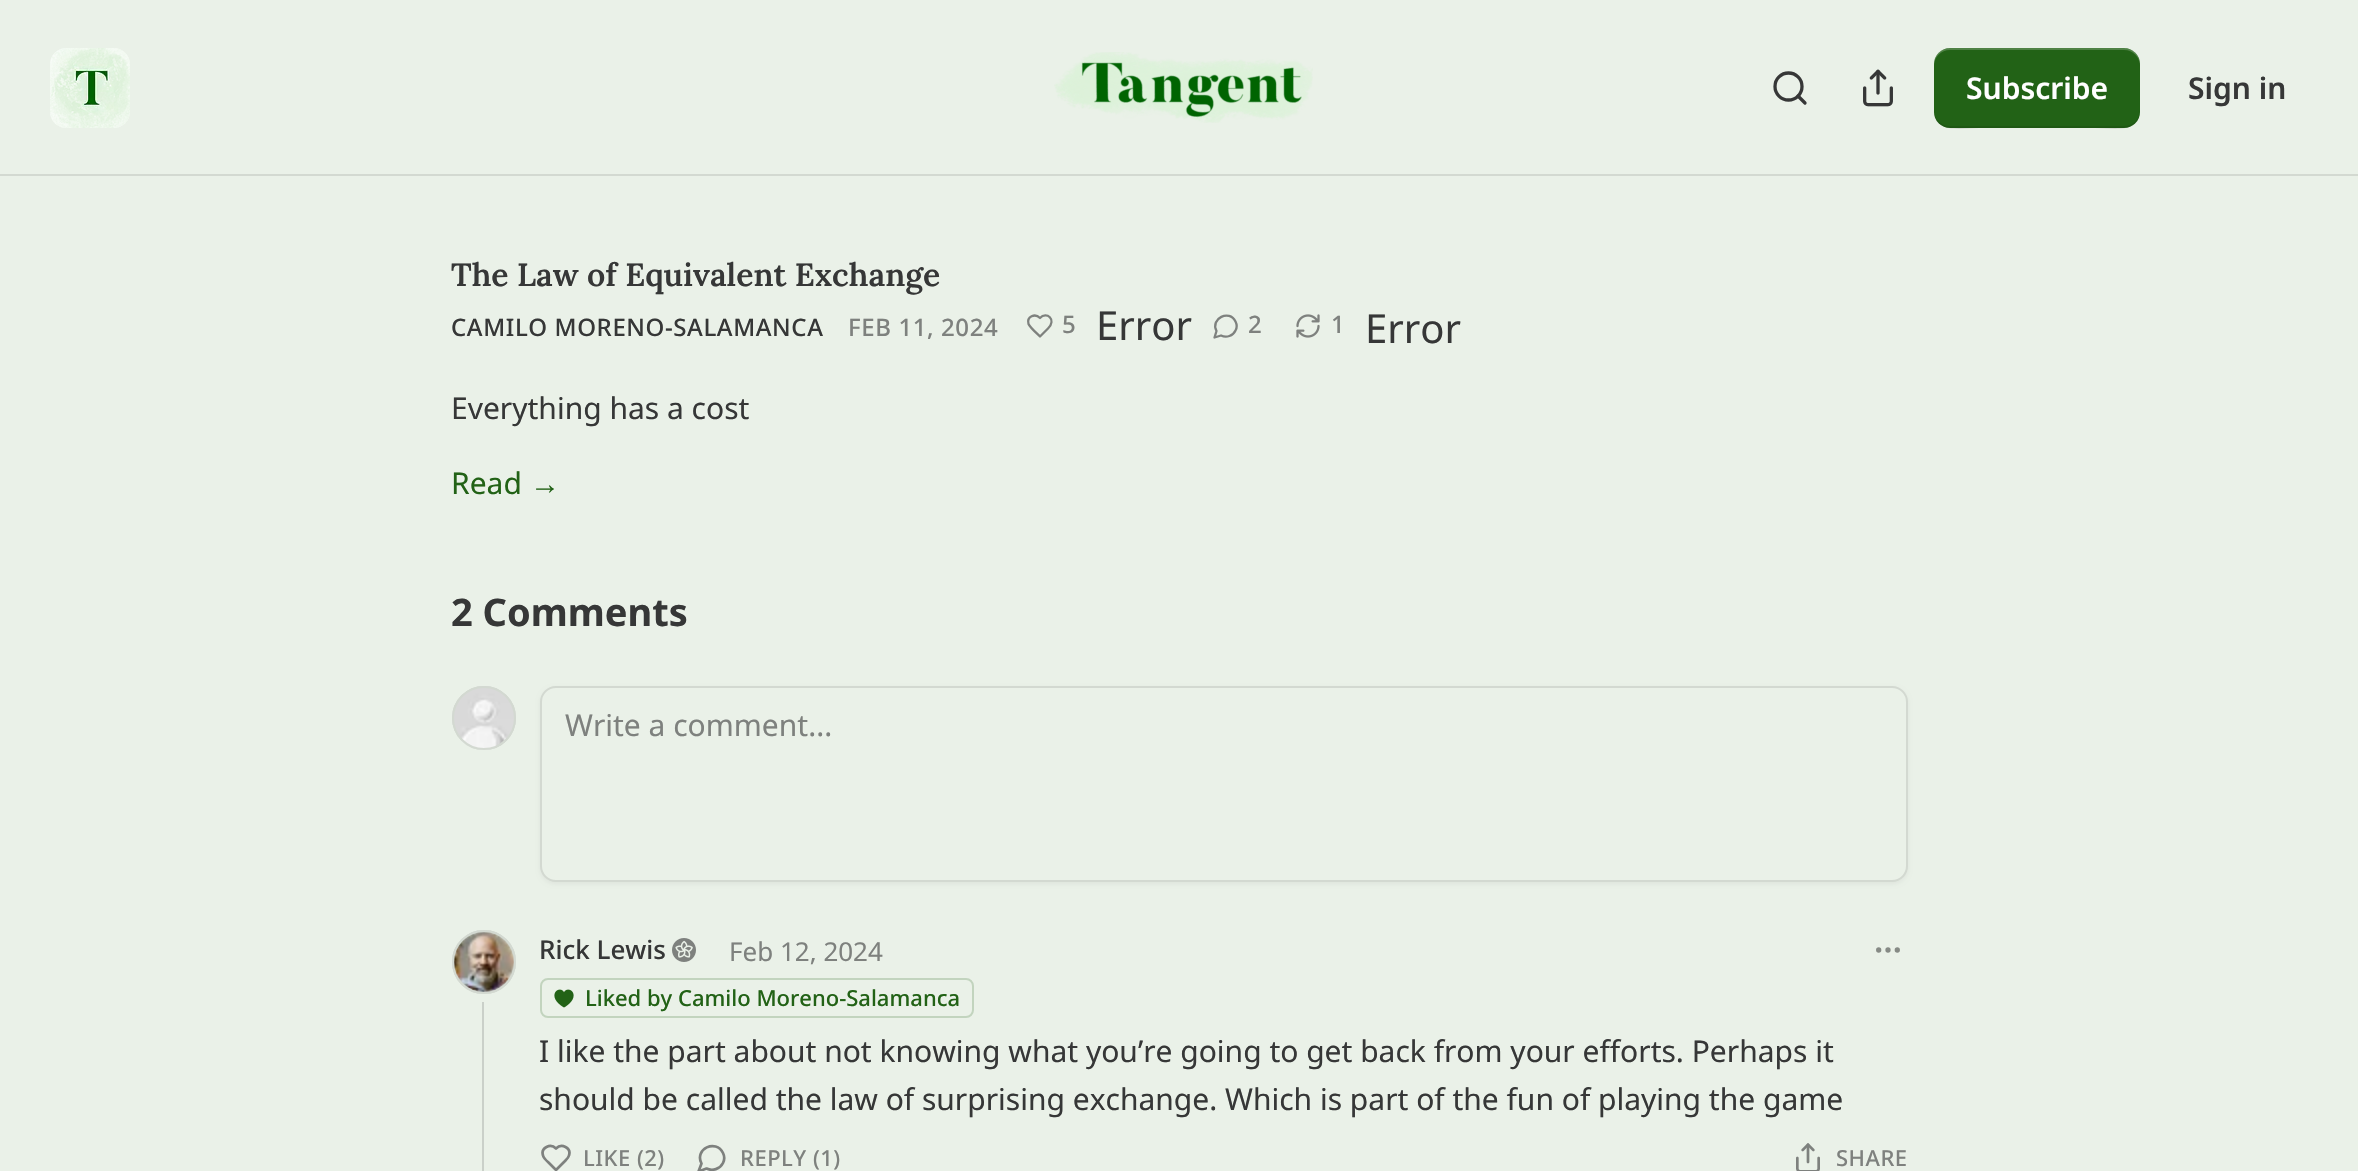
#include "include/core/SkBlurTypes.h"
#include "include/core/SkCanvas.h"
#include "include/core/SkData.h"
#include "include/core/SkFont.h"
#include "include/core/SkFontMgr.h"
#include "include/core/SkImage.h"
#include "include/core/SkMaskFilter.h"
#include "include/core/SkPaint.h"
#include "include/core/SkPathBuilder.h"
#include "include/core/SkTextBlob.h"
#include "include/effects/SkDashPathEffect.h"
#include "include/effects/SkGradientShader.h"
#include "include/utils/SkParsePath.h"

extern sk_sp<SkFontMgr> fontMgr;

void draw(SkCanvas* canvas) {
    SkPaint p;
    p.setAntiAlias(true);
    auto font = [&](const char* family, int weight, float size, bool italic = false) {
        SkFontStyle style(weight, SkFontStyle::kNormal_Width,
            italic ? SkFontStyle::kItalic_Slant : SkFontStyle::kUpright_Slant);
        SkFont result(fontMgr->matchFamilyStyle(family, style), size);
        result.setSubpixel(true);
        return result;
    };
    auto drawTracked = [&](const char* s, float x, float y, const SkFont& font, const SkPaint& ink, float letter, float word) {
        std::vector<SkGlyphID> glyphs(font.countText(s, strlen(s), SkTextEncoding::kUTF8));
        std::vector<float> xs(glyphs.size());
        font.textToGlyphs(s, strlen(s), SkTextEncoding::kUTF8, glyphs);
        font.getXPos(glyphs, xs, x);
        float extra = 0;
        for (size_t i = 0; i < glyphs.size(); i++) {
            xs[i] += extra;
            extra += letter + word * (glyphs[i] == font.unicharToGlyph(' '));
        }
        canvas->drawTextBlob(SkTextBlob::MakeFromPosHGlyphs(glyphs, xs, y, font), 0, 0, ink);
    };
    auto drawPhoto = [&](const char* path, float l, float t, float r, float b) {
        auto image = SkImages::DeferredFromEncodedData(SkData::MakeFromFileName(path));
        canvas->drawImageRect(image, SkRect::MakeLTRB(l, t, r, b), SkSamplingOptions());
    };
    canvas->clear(0xFFEAF1E8);
    p.setColor(0xFFD3D9D1);
    canvas->drawRect(SkRect::MakeLTRB(0, 174, 2358, 176), p);
    p.setColor(0xFFFFFFFF);
    canvas->drawRoundRect(SkRect::MakeLTRB(50, 48, 130, 128), 16, 16, p);
    drawPhoto("media/1.png", 50, 48, 130, 128);
    drawPhoto("media/2.png", 1054, 52, 1313, 123);
    p.setStyle(SkPaint::kStroke_Style);
    p.setStrokeWidth(3.3f);
    p.setColor(0xFF363737);
    canvas->drawCircle(1788.5f, 86.5f, 13.5f, p);
    p.setStrokeCap(SkPaint::kRound_Cap);
    p.setStrokeJoin(SkPaint::kRound_Join);
    canvas->drawPath(SkPathBuilder().moveTo(1805, 103).lineTo(1798, 96).detach(), p);
    drawPhoto("media/3.png", 1863, 69, 1893, 107);
    p.setStyle(SkPaint::kFill_Style);
    p.setColor(0xFF226216);
    canvas->drawRoundRect(SkRect::MakeLTRB(1934, 48, 2140, 128), 16, 16, p);
    p.setColor(0x1A000000);
    canvas->drawPath(SkPathBuilder().moveTo(1934, 110).cubicTo(1934, 135, 1963, 128, 1979, 128).lineTo(2095, 128).cubicTo(2111, 128, 2140, 135, 2140, 110).cubicTo(2140, 119, 2133, 126, 2124, 126).lineTo(1950, 126).cubicTo(1941, 126, 1934, 119, 1934, 110).close().detach(), p);
    p.setColor(0x33FFFFFF);
    canvas->drawPath(SkPathBuilder().moveTo(1950, 50).lineTo(2124, 50).cubicTo(2133, 50, 2140, 57, 2140, 66).cubicTo(2140, 41, 2111, 48, 2095, 48).lineTo(1979, 48).cubicTo(1963, 48, 1934, 41, 1934, 66).cubicTo(1934, 57, 1941, 50, 1950, 50).close().detach(), p);
    auto font1 = font("Noto Sans", 600, 30);
    p.setColor(0xFFFFFFFF);
    canvas->drawString("Subscribe", 1966, 99, font1, p);
    p.setColor(0xFF363737);
    canvas->drawString("Sign in", 2188, 99, font1, p);
    auto font2 = font("Lora", 600, 32);
    canvas->drawString("The Law of Equivalent Exchange", 451, 286, font2, p);
    auto font3 = font("Noto Sans", 500, 24);
    drawTracked("CAMILO MORENO-SALAMANCA", 451, 336, font3, p, 0.6f, 0);
    p.setColor(0xFF7E817E);
    drawTracked("FEB 11, 2024", 848, 336, font3, p, 0.6f, 0);
    p.setStyle(SkPaint::kStroke_Style);
    p.setStrokeWidth(2.3f);
    canvas->drawPath(SkPathBuilder().moveTo(1048, 328.5f).cubicTo(1057, 319.5f, 1046.5f, 311, 1040, 318).cubicTo(1035, 313, 1026.5f, 316.5f, 1028.5f, 324).cubicTo(1030, 327.5f, 1037.5f, 334, 1040, 336.5f).close().detach(), p);
    p.setStyle(SkPaint::kFill_Style);
    drawTracked("5", 1062, 333, font3, p, 0.6f, 0);
    auto font4 = font("Noto Sans", 400, 40);
    p.setColor(0xFF363737);
    canvas->drawString("Error", 1096, 340, font4, p);
    p.setStyle(SkPaint::kStroke_Style);
    p.setColor(0xFF7E817E);
    canvas->drawPath(SkPathBuilder().moveTo(1221, 335.5f).cubicTo(1226.5f, 338, 1233, 336, 1235.5f, 330.5f).cubicTo(1237, 328, 1237, 324.5f, 1235.5f, 321.5f).cubicTo(1229.5f, 309, 1210, 318.5f, 1216.5f, 331).lineTo(1214.5f, 337.5f).close().detach(), p);
    p.setStyle(SkPaint::kFill_Style);
    drawTracked("2", 1248, 333, font3, p, 0.6f, 0);
    drawPhoto("media/4.png", 1296, 314, 1320, 338);
    drawTracked("1", 1331, 333, font3, p, 0.6f, 0);
    p.setColor(0xFF363737);
    canvas->drawString("Error", 1365, 343, font4, p);
    auto font5 = font("Noto Sans", 400, 30);
    canvas->drawString("Everything has a cost", 451, 419, font5, p);
    p.setColor(0xFF226216);
    canvas->drawString("Read", 451, 494, font5, p);
    auto font6 = font("Liberation Sans", 400, 30);
    canvas->drawString("→", 530, 494, font6, p);
    auto font7 = font("Noto Sans", 700, 38);
    p.setColor(0xFF363737);
    canvas->drawString("2 Comments", 451, 626, font7, p);
    p.setStyle(SkPaint::kStroke_Style);
    p.setStrokeWidth(2);
    p.setStrokeCap(SkPaint::kButt_Cap);
    p.setStrokeJoin(SkPaint::kMiter_Join);
    p.setColor(0xFFD3D9D1);
    canvas->drawCircle(484, 718, 31, p);
    drawPhoto("media/5.png", 452, 686, 516, 750);
    canvas->drawCircle(484, 718, 31, p);
    p.setStyle(SkPaint::kFill_Style);
    p.setColor(0x0D000000);
    p.setMaskFilter(SkMaskFilter::MakeBlur(kNormal_SkBlurStyle, 2));
    canvas->drawRoundRect(SkRect::MakeLTRB(540, 688, 1908, 884), 16, 16, p);
    p.setMaskFilter(nullptr);
    p.setColor(0xFFEAF1E8);
    canvas->drawRoundRect(SkRect::MakeLTRB(541, 687, 1907, 881), 15, 15, p);
    p.setStyle(SkPaint::kStroke_Style);
    p.setColor(0xFFD3D9D1);
    canvas->drawRoundRect(SkRect::MakeLTRB(541, 687, 1907, 881), 15, 15, p);
    p.setStyle(SkPaint::kFill_Style);
    p.setColor(0xFF7E817E);
    canvas->drawString("Write a comment...", 565, 736, font5, p);
    p.setColor(0xFFCAD0C9);
    canvas->drawRect(SkRect::MakeLTRB(482, 1002, 484, 1171), p);
    p.setStyle(SkPaint::kStroke_Style);
    p.setColor(0xFFD3D9D1);
    canvas->drawCircle(484, 962, 31, p);
    p.setStyle(SkPaint::kFill_Style);
    p.setColor(0xFFDCE3DA);
    canvas->drawCircle(484, 962, 32, p);
    drawPhoto("media/6.png", 453, 931, 515, 993);
    p.setStyle(SkPaint::kStroke_Style);
    p.setColor(0xFFD3D9D1);
    canvas->drawCircle(484, 962, 31, p);
    auto font8 = font("Noto Sans", 500, 26);
    p.setStyle(SkPaint::kFill_Style);
    p.setColor(0xFF363737);
    canvas->drawString("Rick Lewis", 539, 959, font8, p);
    drawPhoto("media/7.png", 672, 938, 696, 962);
    auto font9 = font("Noto Sans", 400, 26);
    p.setColor(0xFF7E817E);
    canvas->drawString("Feb 12, 2024", 729, 961, font9, p);
    p.setStyle(SkPaint::kStroke_Style);
    p.setColor(0xFFC2D4BE);
    canvas->drawRoundRect(SkRect::MakeLTRB(541, 979, 973, 1017), 7, 7, p);
    drawPhoto("media/8.png", 554, 989, 574, 1008);
    auto font10 = font("Noto Sans", 500, 22);
    p.setStyle(SkPaint::kFill_Style);
    p.setColor(0xFF226216);
    canvas->drawString("Liked by Camilo Moreno-Salamanca", 585, 1006, font10, p);
    p.setStyle(SkPaint::kStroke_Style);
    p.setStrokeWidth(2.7f);
    p.setColor(0xFF868A85);
    canvas->drawCircle(1888, 950, 1.3f, p);
    canvas->drawCircle(1897.3f, 950, 1.3f, p);
    canvas->drawCircle(1878.7f, 950, 1.3f, p);
    p.setStyle(SkPaint::kFill_Style);
    p.setColor(0xFF363737);
    canvas->drawString("I like the part about not knowing what you’re going to get back from your efforts. Perhaps it", 539, 1062, font5, p);
    canvas->drawString("should be called the law of surprising exchange. Which is part of the fun of playing the game", 539, 1110, font5, p);
    p.setStyle(SkPaint::kStroke_Style);
    p.setStrokeCap(SkPaint::kRound_Cap);
    p.setStrokeJoin(SkPaint::kRound_Join);
    p.setColor(0xFF7E817E);
    canvas->drawPath(SkPathBuilder().moveTo(565.5f, 1160.5f).cubicTo(567, 1159, 568.5f, 1157.5f, 569, 1155.5f).cubicTo(571.5f, 1147.5f, 561.5f, 1143, 556, 1148.5f).cubicTo(550.5f, 1143, 540.5f, 1147.5f, 543, 1155.5f).cubicTo(544, 1159, 547.5f, 1161.5f, 550, 1164).lineTo(556, 1170).close().detach(), p);
    p.setStyle(SkPaint::kFill_Style);
    drawTracked("LIKE (2)", 583, 1166, font10, p, 0.5f, 0);
    p.setStyle(SkPaint::kStroke_Style);
    canvas->drawPath(SkPathBuilder().moveTo(706.5f, 1168.5f).cubicTo(712.5f, 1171.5f, 720, 1169, 723, 1163).cubicTo(724.5f, 1160, 724.5f, 1156, 723, 1153).cubicTo(716, 1138.5f, 694, 1149, 701.5f, 1163.5f).lineTo(698.5f, 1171.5f).close().detach(), p);
    p.setStyle(SkPaint::kFill_Style);
    drawTracked("REPLY (1)", 740, 1166, font10, p, 0.5f, 0);
    drawPhoto("media/9.png", 1796, 1143, 1820, 1171);
    drawTracked("SHARE", 1836, 1166, font10, p, 0.5f, 0);
}
